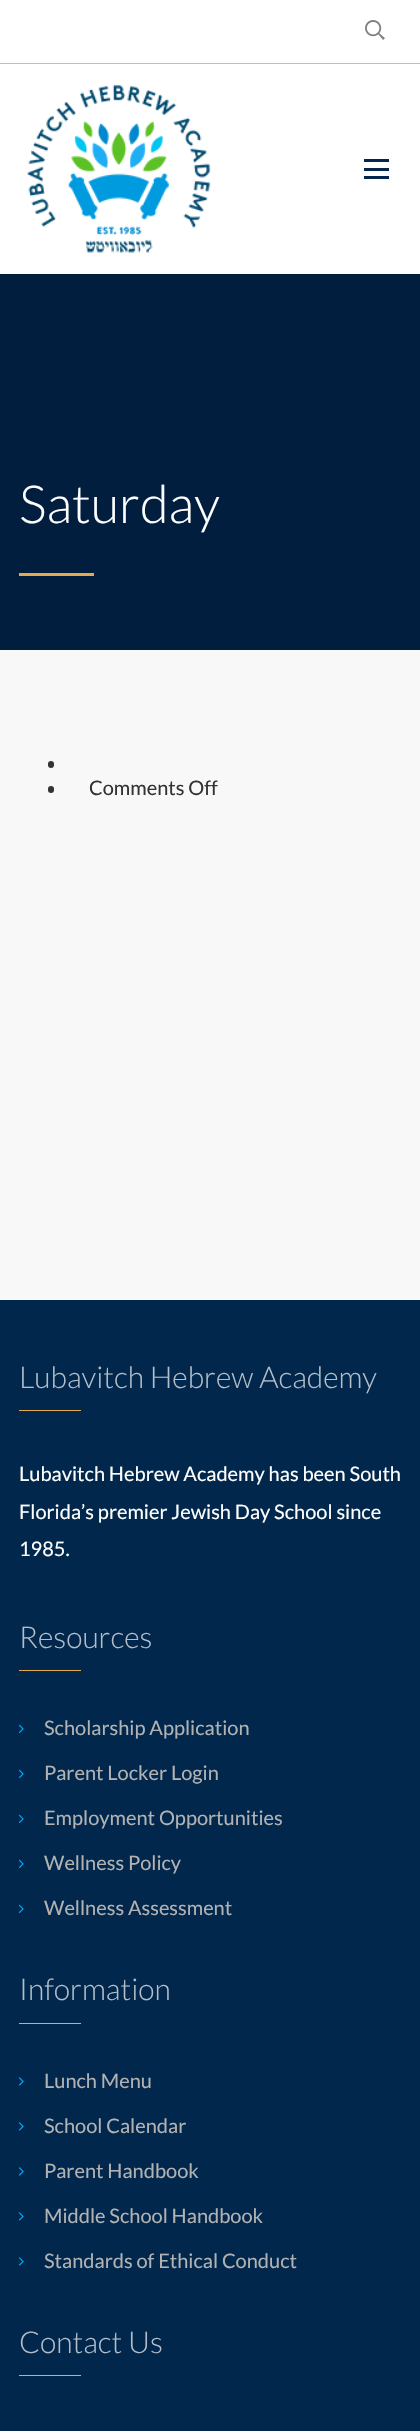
#include "include/core/SkBlurTypes.h"
#include "include/core/SkCanvas.h"
#include "include/core/SkData.h"
#include "include/core/SkFont.h"
#include "include/core/SkFontMgr.h"
#include "include/core/SkImage.h"
#include "include/core/SkMaskFilter.h"
#include "include/core/SkPaint.h"
#include "include/core/SkPathBuilder.h"
#include "include/core/SkTextBlob.h"
#include "include/effects/SkDashPathEffect.h"
#include "include/effects/SkGradientShader.h"
#include "include/utils/SkParsePath.h"

extern sk_sp<SkFontMgr> fontMgr;

void draw(SkCanvas* canvas) {
    SkPaint p;
    p.setAntiAlias(true);
    auto font = [&](const char* family, int weight, float size, bool italic = false) {
        SkFontStyle style(weight, SkFontStyle::kNormal_Width,
            italic ? SkFontStyle::kItalic_Slant : SkFontStyle::kUpright_Slant);
        SkFont result(fontMgr->matchFamilyStyle(family, style), size);
        result.setSubpixel(true);
        return result;
    };
    auto drawPhoto = [&](const char* path, float l, float t, float r, float b) {
        auto image = SkImages::DeferredFromEncodedData(SkData::MakeFromFileName(path));
        canvas->drawImageRect(image, SkRect::MakeLTRB(l, t, r, b), SkSamplingOptions());
    };
    canvas->clear(0xFFF8F8F8);
    p.setColor(0xFFFFFFFF);
    canvas->drawRect(SkRect::MakeLTRB(0, 0, 420, 63), p);
    p.setColor(0xFFBFBFBF);
    canvas->drawRect(SkRect::MakeLTRB(0, 63, 420, 64), p);
    drawPhoto("media/1.png", 365, 20, 385, 40);
    p.setColor(0xFFFFFFFF);
    canvas->drawRect(SkRect::MakeLTRB(0, 64, 420, 274), p);
    drawPhoto("media/2.png", 27, 84, 211, 253);
    {
        const struct { float l, t, r, b; SkColor color; } items[] = {
            {364, 168, 389, 171, 0xFF01274C},
            {364, 159, 389, 162, 0xFF01274C},
            {364, 176, 389, 179, 0xFF01274C},
            {0, 274, 420, 650, 0xFF011E3F},
        };
        for (auto [l, t, r, b, color] : items) {
            p.setColor(color);
            canvas->drawRect(SkRect::MakeLTRB(l, t, r, b), p);
        }
    }
    auto font1 = font("Lato", 300, 52.5f);
    p.setColor(0xFFFFFFFF);
    canvas->drawString("Saturday", 19, 523, font1, p);
    p.setColor(0xFFE6AB4E);
    canvas->drawRect(SkRect::MakeLTRB(19, 573, 94, 576), p);
    p.setColor(0xFF333333);
    canvas->drawRoundRect(SkRect::MakeLTRB(48, 761, 54, 768), 3, 3, p);
    canvas->drawRoundRect(SkRect::MakeLTRB(48, 786, 54, 793), 3, 3, p);
    auto font2 = font("Lato", 400, 20);
    canvas->drawString("Comments Off", 89, 795, font2, p);
    p.setColor(0xFF01274C);
    canvas->drawRect(SkRect::MakeLTRB(0, 1300, 420, 2431), p);
    auto font3 = font("Lato", 300, 30);
    p.setColor(0xFFB3BEC9);
    canvas->drawString("Lubavitch Hebrew Academy", 19, 1388, font3, p);
    p.setColor(0xFFE6AB4E);
    canvas->drawRect(SkRect::MakeLTRB(19, 1410, 81, 1411), p);
    p.setColor(0xFFFFFFFF);
    {
        const struct { const char* s; float x, y; } items[] = {
            {"Lubavitch Hebrew Academy has been South", 19, 1481},
            {"Florida’s premier Jewish Day School since", 19, 1519},
            {"1985.", 19, 1556},
        };
        for (auto [s, x, y] : items) {
            canvas->drawString(s, x, y, font2, p);
        }
    }
    p.setColor(0xFFB3BEC9);
    canvas->drawString("Resources", 19, 1648, font3, p);
    p.setColor(0xFFE6AB4E);
    canvas->drawRect(SkRect::MakeLTRB(19, 1670, 81, 1671), p);
    drawPhoto("media/3.png", 18, 1724, 24, 1734);
    p.setColor(0xFFB2B2B2);
    canvas->drawString("Scholarship Application", 44, 1735, font2, p);
    drawPhoto("media/3.png", 18, 1769, 24, 1779);
    canvas->drawString("Parent Locker Login", 44, 1780, font2, p);
    drawPhoto("media/3.png", 18, 1814, 24, 1824);
    canvas->drawString("Employment Opportunities", 44, 1825, font2, p);
    drawPhoto("media/3.png", 18, 1859, 24, 1869);
    canvas->drawString("Wellness Policy", 44, 1870, font2, p);
    drawPhoto("media/3.png", 18, 1904, 24, 1914);
    canvas->drawString("Wellness Assessment", 44, 1915, font2, p);
    p.setColor(0xFFB3BEC9);
    canvas->drawString("Information", 19, 2000, font3, p);
    p.setColor(0xFFE6AB4E);
    canvas->drawRect(SkRect::MakeLTRB(19, 2023, 81, 2024), p);
    drawPhoto("media/4.png", 18, 2077, 24, 2086);
    p.setColor(0xFFB2B2B2);
    canvas->drawString("Lunch Menu", 44, 2088, font2, p);
    drawPhoto("media/4.png", 18, 2122, 24, 2131);
    canvas->drawString("School Calendar", 44, 2133, font2, p);
    drawPhoto("media/4.png", 18, 2167, 24, 2176);
    canvas->drawString("Parent Handbook", 44, 2178, font2, p);
    drawPhoto("media/4.png", 18, 2212, 24, 2221);
    canvas->drawString("Middle School Handbook", 44, 2223, font2, p);
    drawPhoto("media/4.png", 18, 2257, 24, 2266);
    canvas->drawString("Standards of Ethical Conduct", 44, 2268, font2, p);
    p.setColor(0xFFB3BEC9);
    canvas->drawString("Contact Us", 19, 2353, font3, p);
    p.setColor(0xFFE6AB4E);
    canvas->drawRect(SkRect::MakeLTRB(19, 2375, 81, 2376), p);
}
